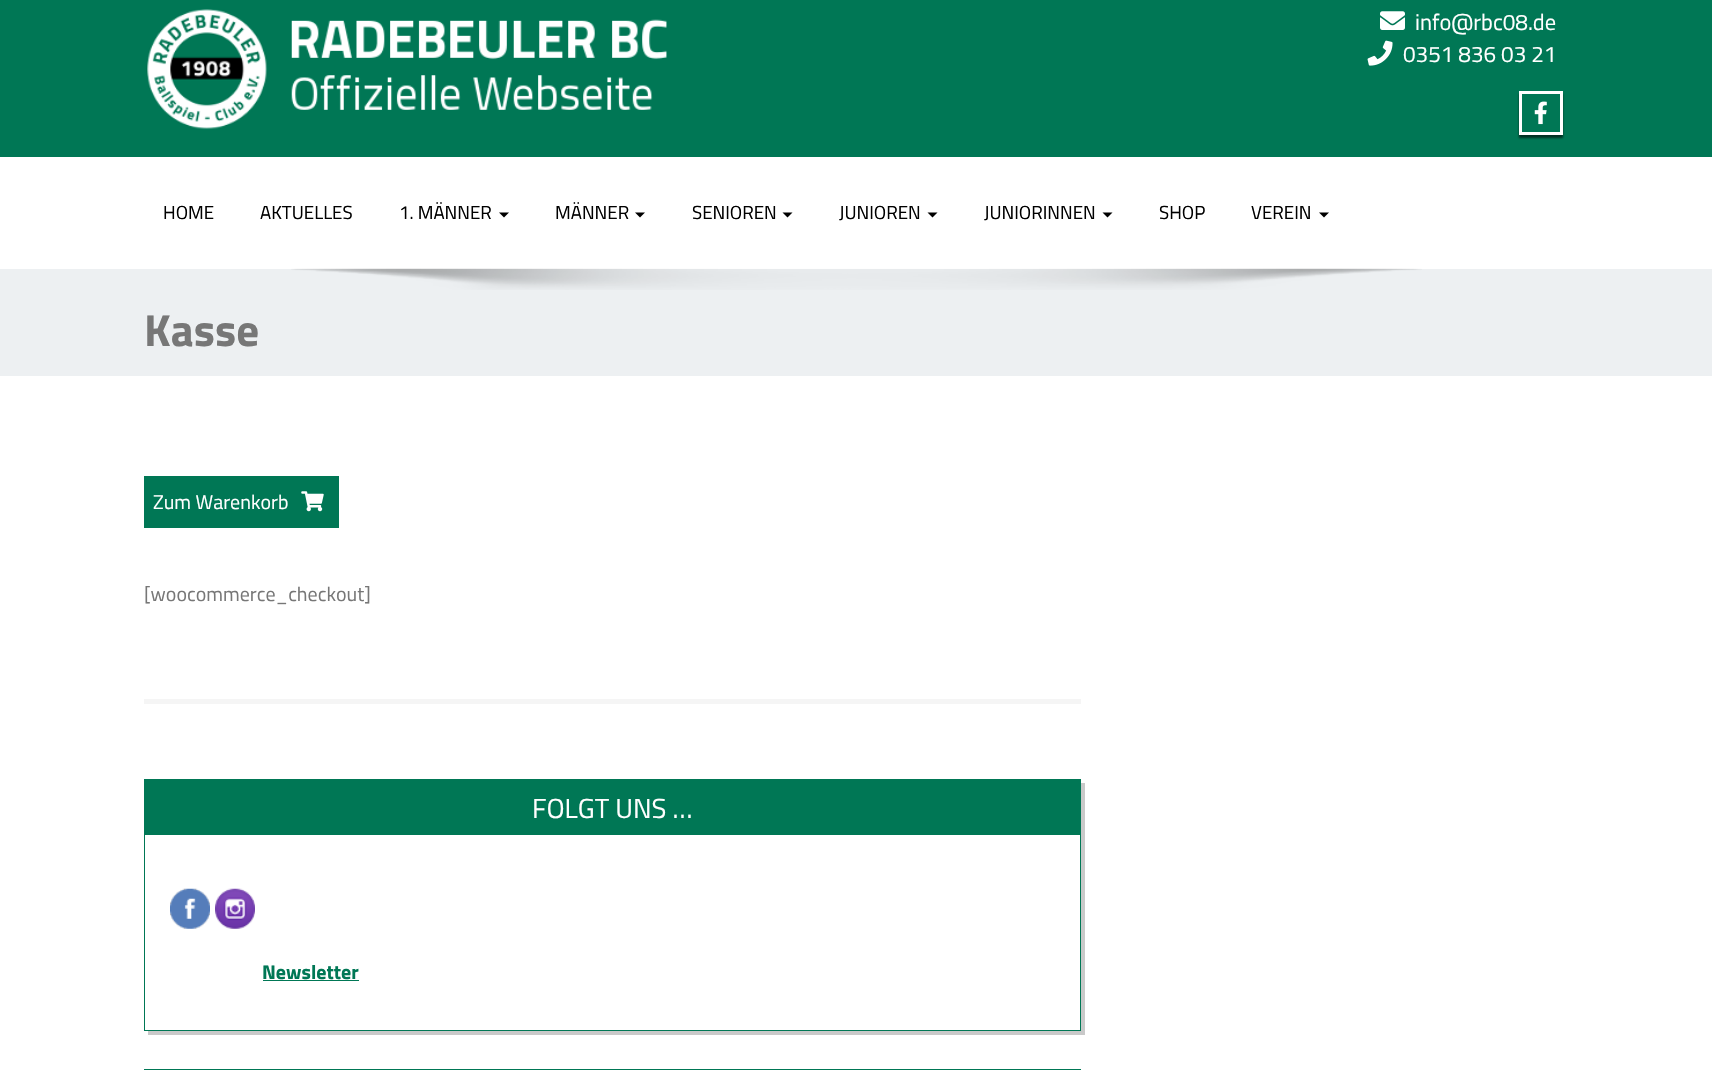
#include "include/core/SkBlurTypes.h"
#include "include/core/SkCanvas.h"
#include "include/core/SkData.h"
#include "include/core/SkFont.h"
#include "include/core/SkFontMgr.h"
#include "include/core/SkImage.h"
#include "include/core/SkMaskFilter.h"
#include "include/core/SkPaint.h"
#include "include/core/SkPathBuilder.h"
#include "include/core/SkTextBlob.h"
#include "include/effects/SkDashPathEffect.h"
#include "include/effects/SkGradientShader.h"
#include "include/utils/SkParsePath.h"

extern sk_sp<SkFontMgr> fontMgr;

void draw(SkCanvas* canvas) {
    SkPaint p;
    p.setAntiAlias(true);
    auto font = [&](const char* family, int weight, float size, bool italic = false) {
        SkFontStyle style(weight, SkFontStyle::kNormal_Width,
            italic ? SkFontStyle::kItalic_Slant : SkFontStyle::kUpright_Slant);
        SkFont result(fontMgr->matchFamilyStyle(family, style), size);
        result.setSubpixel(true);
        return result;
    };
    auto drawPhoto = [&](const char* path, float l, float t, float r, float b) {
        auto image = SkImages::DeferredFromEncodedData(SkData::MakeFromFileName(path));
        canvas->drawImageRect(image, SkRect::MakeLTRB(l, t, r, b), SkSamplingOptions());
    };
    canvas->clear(0xFFFFFFFF);
    p.setColor(0xFF007755);
    canvas->drawRect(SkRect::MakeLTRB(0, 0, 1712, 157), p);
    drawPhoto("media/1.png", 146, 9, 667, 130);
    drawPhoto("media/2.png", 1380, 11, 1405, 30);
    auto font1 = font("Titillium Web", 400, 22.5f);
    p.setColor(0xFFFFFFFF);
    canvas->drawString("info@rbc08.de", 1415, 30, font1, p);
    drawPhoto("media/3.png", 1367, 40, 1393, 66);
    canvas->drawString("0351 836 03 21", 1403, 62, font1, p);
    canvas->save();
    canvas->clipPath(SkPathBuilder(SkPathFillType::kEvenOdd).moveTo(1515, 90).lineTo(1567, 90).lineTo(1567, 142).lineTo(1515, 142).close().moveTo(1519, 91).lineTo(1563, 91).lineTo(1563, 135).lineTo(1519, 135).close().detach(), true);
    p.setColor(0x99000000);
    p.setMaskFilter(SkMaskFilter::MakeBlur(kNormal_SkBlurStyle, 1));
    canvas->drawRect(SkRect::MakeLTRB(1519, 94, 1563, 138), p);
    p.setMaskFilter(nullptr);
    canvas->restore();
    p.setStyle(SkPaint::kStroke_Style);
    p.setStrokeWidth(3);
    p.setColor(0xFFFFFFFF);
    canvas->drawRect(SkRect::MakeLTRB(1520.5f, 92.5f, 1561.5f, 133.5f), p);
    drawPhoto("media/4.png", 1534, 101, 1547, 125);
    auto font2 = font("Titillium Web", 400, 18.75f);
    p.setStyle(SkPaint::kFill_Style);
    p.setColor(0xFF000000);
    {
        const struct { const char* s; float x, y; } items[] = {
            {"HOME", 163, 219},
            {"AKTUELLES", 260, 219},
            {"1. MÄNNER", 399, 219},
        };
        for (auto [s, x, y] : items) {
            canvas->drawString(s, x, y, font2, p);
        }
    }
    canvas->drawPath(SkPathBuilder().moveTo(499, 212.5f).lineTo(509, 212.5f).lineTo(504, 217.5f).close().detach(), p);
    canvas->drawString("MÄNNER", 555, 219, font2, p);
    canvas->drawPath(SkPathBuilder().moveTo(635, 212.5f).lineTo(645, 212.5f).lineTo(640, 217.5f).close().detach(), p);
    canvas->drawString("SENIOREN", 692, 219, font2, p);
    canvas->drawPath(SkPathBuilder().moveTo(782.5f, 212.5f).lineTo(792.5f, 212.5f).lineTo(787.5f, 217.5f).close().detach(), p);
    canvas->drawString("JUNIOREN", 839, 219, font2, p);
    canvas->drawPath(SkPathBuilder().moveTo(927.5f, 212.5f).lineTo(937.5f, 212.5f).lineTo(932.5f, 217.5f).close().detach(), p);
    canvas->drawString("JUNIORINNEN", 984, 219, font2, p);
    canvas->drawPath(SkPathBuilder().moveTo(1102.5f, 212.5f).lineTo(1112.5f, 212.5f).lineTo(1107.5f, 217.5f).close().detach(), p);
    canvas->drawString("SHOP", 1159, 219, font2, p);
    canvas->drawString("VEREIN", 1251, 219, font2, p);
    canvas->drawPath(SkPathBuilder().moveTo(1319, 212.5f).lineTo(1329, 212.5f).lineTo(1324, 217.5f).close().detach(), p);
    p.setColor(0xFFEDF0F2);
    canvas->drawRect(SkRect::MakeLTRB(0, 269, 1712, 376), p);
    drawPhoto("media/5.png", 291, 268, 1422, 290);
    auto font3 = font("Titillium Web", 700, 45);
    p.setColor(0xFF777777);
    canvas->drawString("Kasse", 144, 346, font3, p);
    p.setColor(0xFF007755);
    canvas->drawRect(SkRect::MakeLTRB(145.5f, 477.5f, 337.5f, 526.5f), p);
    p.setStyle(SkPaint::kStroke_Style);
    canvas->drawRect(SkRect::MakeLTRB(145.5f, 477.5f, 337.5f, 526.5f), p);
    auto font4 = font("Titillium Web", 400, 20);
    p.setStyle(SkPaint::kFill_Style);
    p.setColor(0xFFFFFFFF);
    canvas->drawString("Zum Warenkorb", 153, 509, font4, p);
    drawPhoto("media/6.png", 301, 491, 324, 512);
    p.setColor(0xFF777777);
    canvas->drawString("[woocommerce_checkout]", 144, 601, font4, p);
    p.setColor(0xFFF5F5F5);
    canvas->drawRect(SkRect::MakeLTRB(144, 699, 1081, 704), p);
    p.setColor(0xFFC9C9C9);
    canvas->drawPath(SkPathBuilder().moveTo(148, 1031).lineTo(148, 1035).lineTo(1085, 1035).lineTo(1085, 783).lineTo(1081, 783).lineTo(1081, 1031).close().detach(), p);
    p.setStyle(SkPaint::kStroke_Style);
    p.setStrokeWidth(1);
    p.setColor(0xFF007755);
    canvas->drawRect(SkRect::MakeLTRB(144.5f, 779.5f, 1080.5f, 1030.5f), p);
    p.setStyle(SkPaint::kFill_Style);
    canvas->drawRect(SkRect::MakeLTRB(145, 780, 1080, 835), p);
    auto font5 = font("Titillium Web", 400, 27.5f);
    p.setColor(0xFFFFFFFF);
    canvas->drawString("FOLGT UNS …", 532, 818, font5, p);
    drawPhoto("media/7.png", 170, 888, 210, 929);
    drawPhoto("media/8.png", 215, 888, 255, 929);
    auto font6 = font("Titillium Web", 700, 20);
    p.setColor(0xFF007755);
    canvas->drawString("Newsletter", 262, 979, font6, p);
    canvas->drawRect(SkRect::MakeLTRB(263, 980, 359, 981), p);
    p.setStyle(SkPaint::kStroke_Style);
    canvas->drawRect(SkRect::MakeLTRB(144.5f, 1069.5f, 1080.5f, 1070.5f), p);
}
